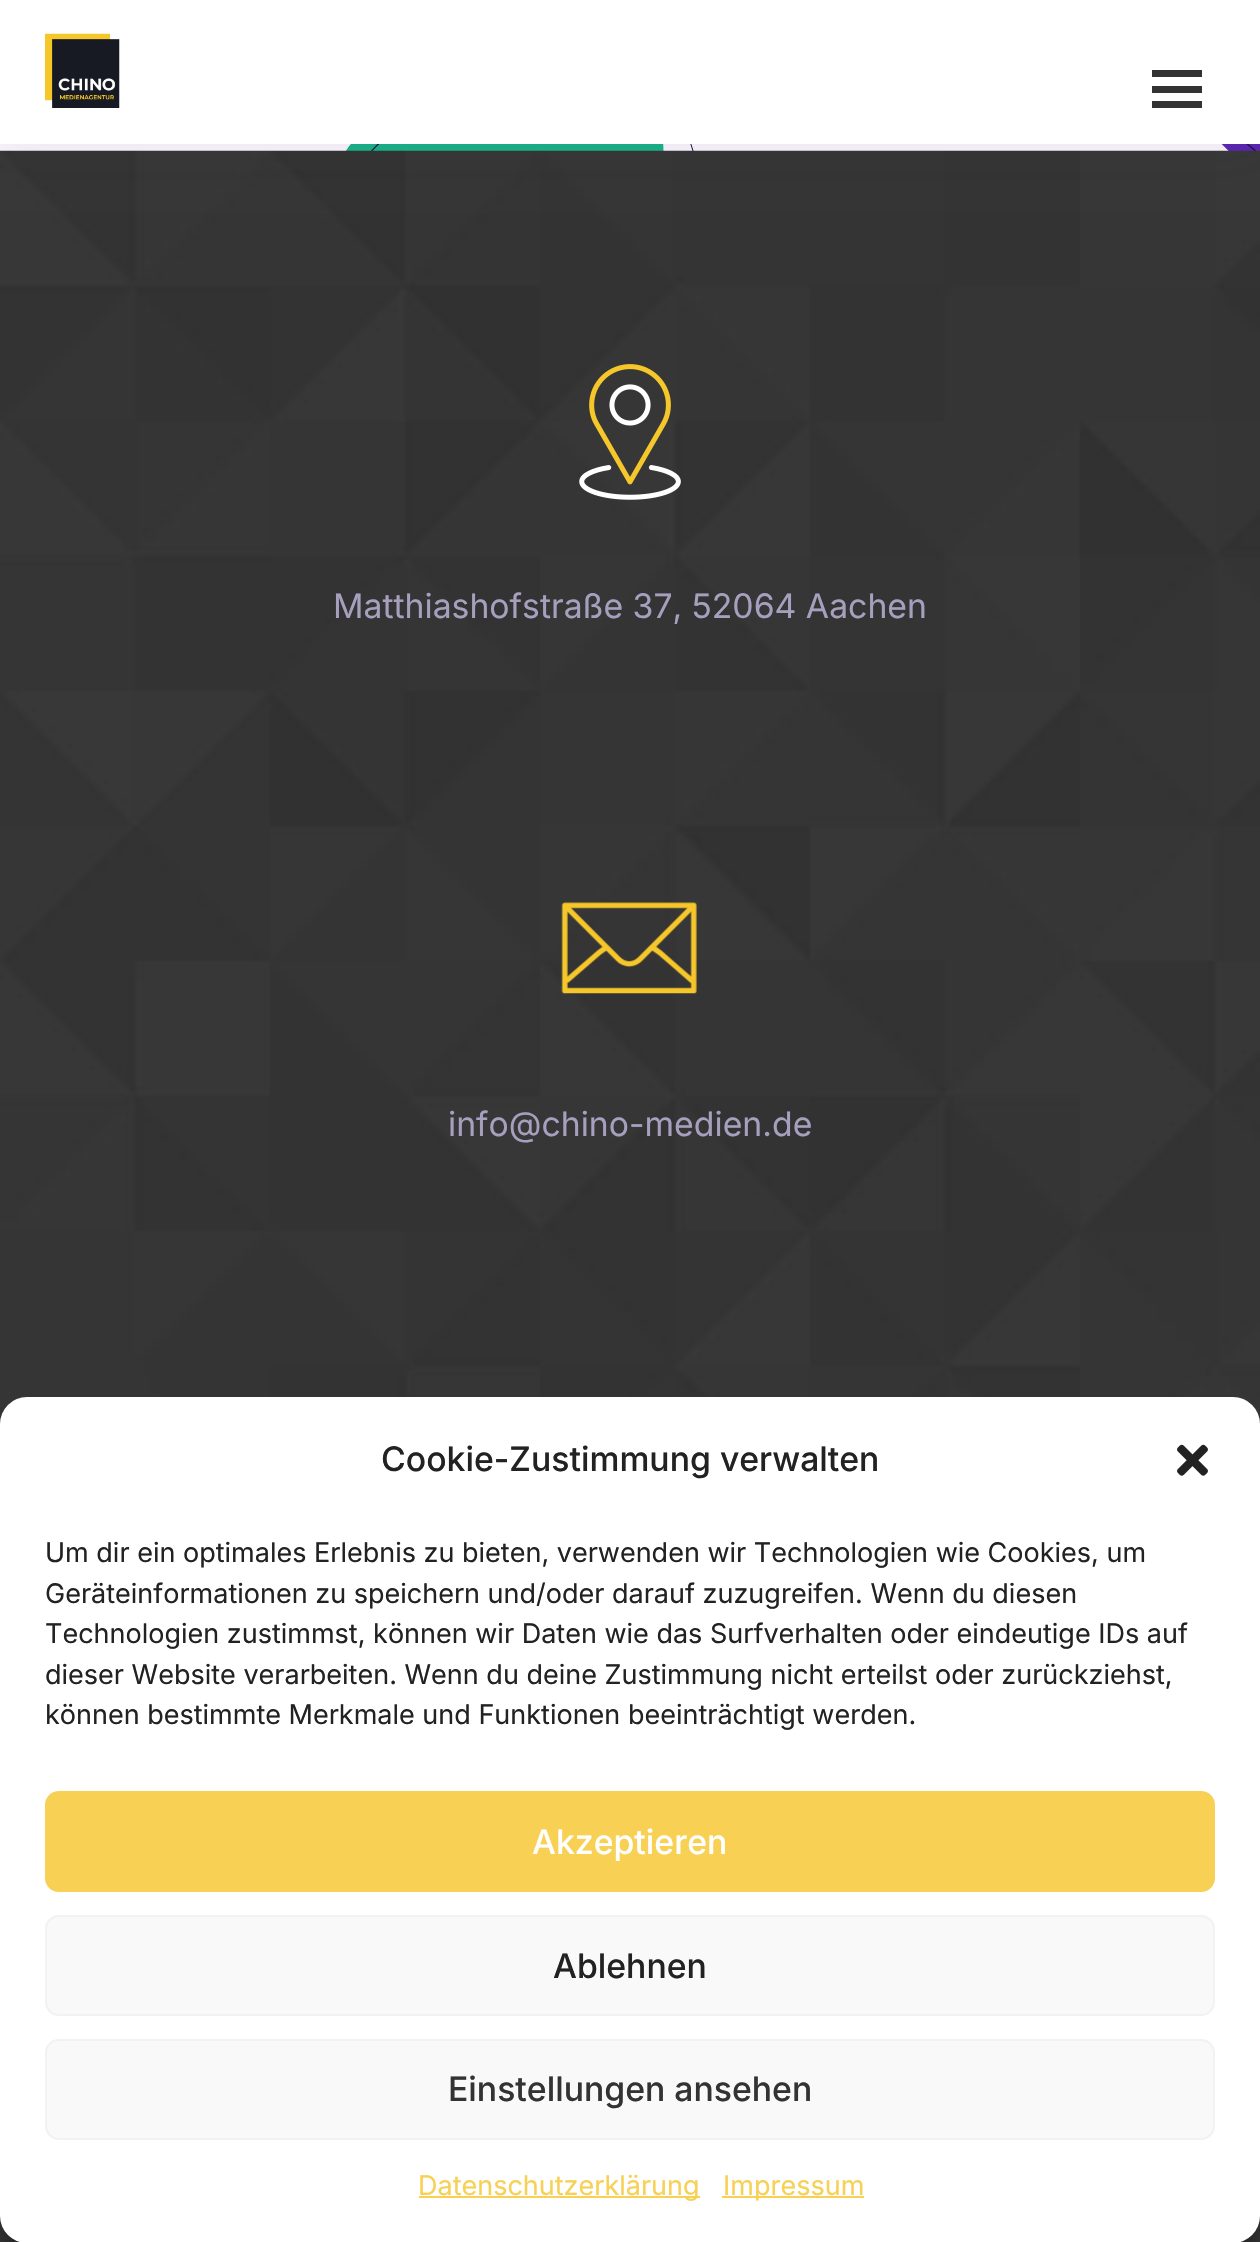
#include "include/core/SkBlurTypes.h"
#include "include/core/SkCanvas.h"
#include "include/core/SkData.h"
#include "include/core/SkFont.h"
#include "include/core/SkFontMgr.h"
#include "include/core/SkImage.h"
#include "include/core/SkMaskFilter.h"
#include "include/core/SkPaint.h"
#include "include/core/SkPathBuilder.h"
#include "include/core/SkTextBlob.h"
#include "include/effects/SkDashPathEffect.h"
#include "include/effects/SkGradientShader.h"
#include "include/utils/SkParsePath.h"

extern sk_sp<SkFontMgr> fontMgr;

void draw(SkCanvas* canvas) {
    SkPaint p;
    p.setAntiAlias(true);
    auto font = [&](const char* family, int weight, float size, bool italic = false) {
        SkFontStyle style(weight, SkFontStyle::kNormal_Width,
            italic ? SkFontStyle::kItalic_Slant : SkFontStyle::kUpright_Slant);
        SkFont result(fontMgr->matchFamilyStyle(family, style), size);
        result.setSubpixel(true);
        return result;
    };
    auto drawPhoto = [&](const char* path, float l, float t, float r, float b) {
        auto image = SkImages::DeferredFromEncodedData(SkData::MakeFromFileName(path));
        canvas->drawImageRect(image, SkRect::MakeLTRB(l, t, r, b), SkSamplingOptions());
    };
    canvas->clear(0xFFFFFFFF);
    drawPhoto("media/2.png", 0, 144, 1260, 151);
    drawPhoto("media/3.png", 0, 150, 1260, 2242);
    p.setColor(0x1A444444);
    p.setMaskFilter(SkMaskFilter::MakeBlur(kNormal_SkBlurStyle, 22.5f));
    canvas->drawRect(SkRect::MakeLTRB(0, 2, 1260, 146), p);
    p.setMaskFilter(nullptr);
    p.setColor(0xFFFFFFFF);
    canvas->drawRect(SkRect::MakeLTRB(0, 0, 1260, 144), p);
    drawPhoto("media/1.png", 45, 33, 120, 108);
    {
        const struct { float l, t, r, b; SkColor color; } items[] = {
            {1152, 70, 1202, 77, 0xFF333333},
            {1152, 86, 1202, 93, 0xFF333333},
            {1152, 101, 1202, 108, 0xFF333333},
        };
        for (auto [l, t, r, b, color] : items) {
            p.setColor(color);
            canvas->drawRect(SkRect::MakeLTRB(l, t, r, b), p);
        }
    }
    drawPhoto("media/4.png", 579, 364, 681, 500);
    auto font1 = font("Inter", 400, 33.75f);
    p.setColor(0xFFA79FBE);
    canvas->drawString("Matthiashofstraße 37, 52064 Aachen", 333, 618, font1, p);
    drawPhoto("media/5.png", 561, 902, 697, 994);
    canvas->drawString("info@chino-medien.de", 448, 1136, font1, p);
    p.setColor(0x3B000000);
    p.setMaskFilter(SkMaskFilter::MakeBlur(kNormal_SkBlurStyle, 7));
    canvas->drawRoundRect(SkRect::MakeLTRB(0, 1411, 1260, 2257), 27, 27, p);
    p.setMaskFilter(nullptr);
    p.setColor(0xFFFFFFFF);
    canvas->drawRoundRect(SkRect::MakeLTRB(0, 1397, 1260, 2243), 27, 27, p);
    auto font2 = font("Inter", 500, 33.75f);
    p.setColor(0xFF222222);
    canvas->drawString("Cookie-Zustimmung verwalten", 381, 1471, font2, p);
    drawPhoto("media/6.png", 1177, 1444, 1208, 1476);
    auto font3 = font("Inter", 400, 27);
    {
        const struct { const char* s; float x, y; } items[] = {
            {"Um dir ein optimales Erlebnis zu bieten, verwenden wir Technologien wie Cookies, um", 45, 1562},
            {"Geräteinformationen zu speichern und/oder darauf zuzugreifen. Wenn du diesen", 45, 1603},
            {"Technologien zustimmst, können wir Daten wie das Surfverhalten oder eindeutige IDs auf", 45, 1643},
            {"dieser Website verarbeiten. Wenn du deine Zustimmung nicht erteilst oder zurückziehst,", 45, 1684},
            {"können bestimmte Merkmale und Funktionen beeinträchtigt werden.", 45, 1724},
        };
        for (auto [s, x, y] : items) {
            canvas->drawString(s, x, y, font3, p);
        }
    }
    p.setColor(0xFFF7D054);
    canvas->drawRoundRect(SkRect::MakeLTRB(46, 1792, 1214, 1891), 13, 13, p);
    p.setStyle(SkPaint::kStroke_Style);
    p.setStrokeWidth(2);
    canvas->drawRoundRect(SkRect::MakeLTRB(46, 1792, 1214, 1891), 13, 13, p);
    p.setStyle(SkPaint::kFill_Style);
    p.setColor(0xFFFFFFFF);
    canvas->drawString("Akzeptieren", 532, 1854, font2, p);
    p.setColor(0xFFF9F9F9);
    canvas->drawRoundRect(SkRect::MakeLTRB(46, 1916, 1214, 2015), 13, 13, p);
    p.setStyle(SkPaint::kStroke_Style);
    p.setColor(0xFFF2F2F2);
    canvas->drawRoundRect(SkRect::MakeLTRB(46, 1916, 1214, 2015), 13, 13, p);
    p.setStyle(SkPaint::kFill_Style);
    p.setColor(0xFF222222);
    canvas->drawString("Ablehnen", 553, 1978, font2, p);
    p.setColor(0xFFF9F9F9);
    canvas->drawRoundRect(SkRect::MakeLTRB(46, 2040, 1214, 2139), 13, 13, p);
    p.setStyle(SkPaint::kStroke_Style);
    p.setColor(0xFFF2F2F2);
    canvas->drawRoundRect(SkRect::MakeLTRB(46, 2040, 1214, 2139), 13, 13, p);
    p.setStyle(SkPaint::kFill_Style);
    p.setColor(0xFF333333);
    canvas->drawString("Einstellungen ansehen", 448, 2101, font2, p);
    p.setColor(0xFFF7D054);
    canvas->drawRect(SkRect::MakeLTRB(419, 2196, 700, 2198), p);
    canvas->drawString("Datenschutzerklärung", 418, 2195, font3, p);
    canvas->drawRect(SkRect::MakeLTRB(722, 2196, 864, 2198), p);
    canvas->drawString("Impressum", 723, 2195, font3, p);
}
